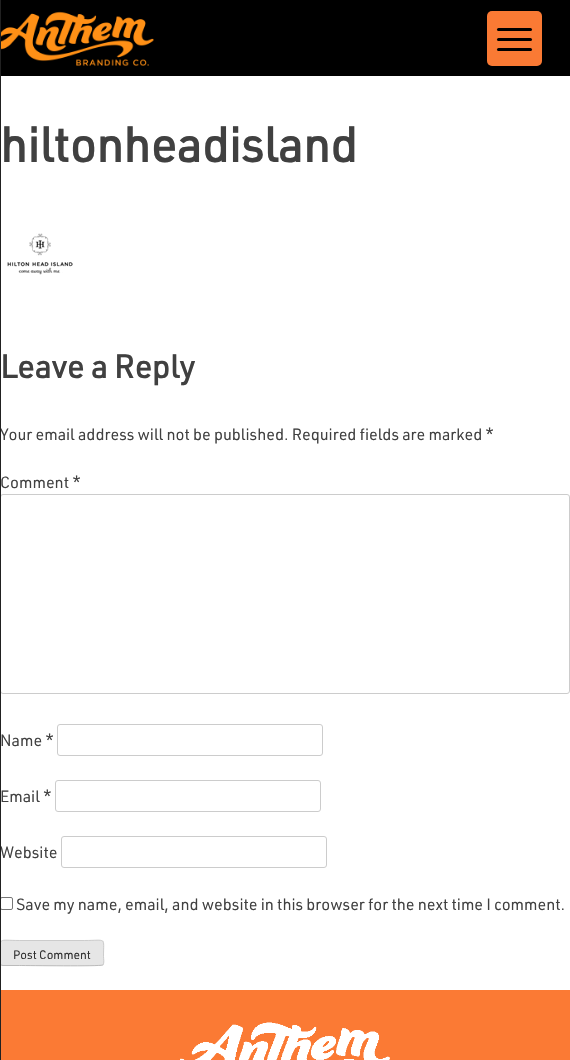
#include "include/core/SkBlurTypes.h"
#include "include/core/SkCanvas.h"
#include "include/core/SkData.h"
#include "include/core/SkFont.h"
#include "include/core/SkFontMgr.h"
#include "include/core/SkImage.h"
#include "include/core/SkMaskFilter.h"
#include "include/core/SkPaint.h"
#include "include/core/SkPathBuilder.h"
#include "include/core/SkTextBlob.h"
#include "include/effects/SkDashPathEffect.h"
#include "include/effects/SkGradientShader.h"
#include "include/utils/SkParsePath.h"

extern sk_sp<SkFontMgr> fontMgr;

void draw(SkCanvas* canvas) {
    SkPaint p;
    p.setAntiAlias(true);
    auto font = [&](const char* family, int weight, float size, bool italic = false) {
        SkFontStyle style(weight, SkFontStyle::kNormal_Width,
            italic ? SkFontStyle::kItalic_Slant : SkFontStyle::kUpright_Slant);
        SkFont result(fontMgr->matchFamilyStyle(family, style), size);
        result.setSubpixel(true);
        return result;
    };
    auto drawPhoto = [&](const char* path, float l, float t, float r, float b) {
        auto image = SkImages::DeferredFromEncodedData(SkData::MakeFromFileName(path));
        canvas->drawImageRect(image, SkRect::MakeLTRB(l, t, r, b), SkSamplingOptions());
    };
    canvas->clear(0xFFFFFFFF);
    auto font1 = font("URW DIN", 400, 16);
    p.setColor(0xFF404040);
    canvas->drawString("Your email address will not be published. Required fields are marked *", 0, 440, font1, p);
    p.setStyle(SkPaint::kStroke_Style);
    p.setStrokeWidth(1);
    p.setColor(0xFFCCCCCC);
    canvas->drawRoundRect(SkRect::MakeLTRB(0.5f, 494.5f, 569.5f, 693.5f), 2.5f, 2.5f, p);
    p.setStyle(SkPaint::kFill_Style);
    p.setColor(0xFF404040);
    canvas->drawString("Website", 0, 858, font1, p);
    p.setStyle(SkPaint::kStroke_Style);
    p.setColor(0xFF767676);
    canvas->drawRoundRect(SkRect::MakeLTRB(0.5f, 897.5f, 12.5f, 909.5f), 1.5f, 1.5f, p);
    p.setStyle(SkPaint::kFill_Style);
    p.setColor(0xFFE6E6E6);
    canvas->drawRoundRect(SkRect::MakeLTRB(0, 940, 104, 966), 3, 3, p);
    p.setStyle(SkPaint::kStroke_Style);
    p.setColor(0xFFBBBBBB);
    canvas->drawPath(SkPathBuilder().moveTo(103, 965).lineTo(102.5f, 965).cubicTo(100.5f, 966.5f, 28, 965.5f, 19.5f, 965.5f).lineTo(3, 965.5f).lineTo(1, 965).detach(), p);
    p.setColor(0xFFCCCCCC);
    canvas->drawPath(SkPathBuilder().moveTo(1, 965).cubicTo(-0.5f, 963, 0.5f, 958.5f, 0.5f, 956.5f).cubicTo(0.5f, 936.5f, -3, 940.5f, 19.5f, 940.5f).lineTo(84.5f, 940.5f).cubicTo(107, 940.5f, 103.5f, 936.5f, 103.5f, 956.5f).cubicTo(103.5f, 958.5f, 104.5f, 963, 103, 965).detach(), p);
    p.setStyle(SkPaint::kFill_Style);
    p.setColor(0xFF212121);
    canvas->drawRect(SkRect::MakeLTRB(0, 0, 1, 1060), p);
    p.setColor(0xFF000000);
    canvas->drawRect(SkRect::MakeLTRB(1, 0, 570, 76), p);
    p.setColor(0xFFFA7A34);
    canvas->drawRoundRect(SkRect::MakeLTRB(487, 11, 542, 66), 5, 5, p);
    p.setColor(0xFF000000);
    canvas->drawRoundRect(SkRect::MakeLTRB(497, 38, 532, 41), 1.5f, 1.5f, p);
    canvas->drawRoundRect(SkRect::MakeLTRB(497, 28, 532, 31), 1.5f, 1.5f, p);
    canvas->drawRoundRect(SkRect::MakeLTRB(497, 48, 532, 51), 1.5f, 1.5f, p);
    drawPhoto("media/1.png", 1, 11, 154, 66);
    auto font2 = font("URW DIN", 700, 48);
    p.setColor(0xFF404040);
    canvas->drawString("hiltonheadisland", 0, 162, font2, p);
    drawPhoto("media/2.png", 7, 233, 73, 275);
    auto font3 = font("URW DIN", 700, 32);
    canvas->drawString("Leave a Reply", 0, 378, font3, p);
    canvas->drawString("Comment *", 0, 488, font1, p);
    canvas->drawString("Name *", 0, 746, font1, p);
    p.setStyle(SkPaint::kStroke_Style);
    p.setColor(0xFFCCCCCC);
    canvas->drawRoundRect(SkRect::MakeLTRB(57.5f, 724.5f, 322.5f, 755.5f), 2.5f, 2.5f, p);
    p.setStyle(SkPaint::kFill_Style);
    p.setColor(0xFF404040);
    canvas->drawString("Email *", 0, 802, font1, p);
    p.setStyle(SkPaint::kStroke_Style);
    p.setColor(0xFFCCCCCC);
    canvas->drawRoundRect(SkRect::MakeLTRB(55.5f, 780.5f, 320.5f, 811.5f), 2.5f, 2.5f, p);
    canvas->drawRoundRect(SkRect::MakeLTRB(61.5f, 836.5f, 326.5f, 867.5f), 2.5f, 2.5f, p);
    p.setStyle(SkPaint::kFill_Style);
    p.setColor(0xFF404040);
    canvas->drawString("Save my name, email, and website in this browser for the next time I comment.", 16, 910, font1, p);
    auto font4 = font("URW DIN", 400, 12);
    p.setColor(0xFF2E2E2E);
    canvas->drawString("Post Comment", 13, 959, font4, p);
    p.setColor(0xFFFB7A34);
    canvas->drawRect(SkRect::MakeLTRB(1, 990, 570, 1060), p);
    drawPhoto("media/3.png", 180, 1022, 390, 1060);
}
